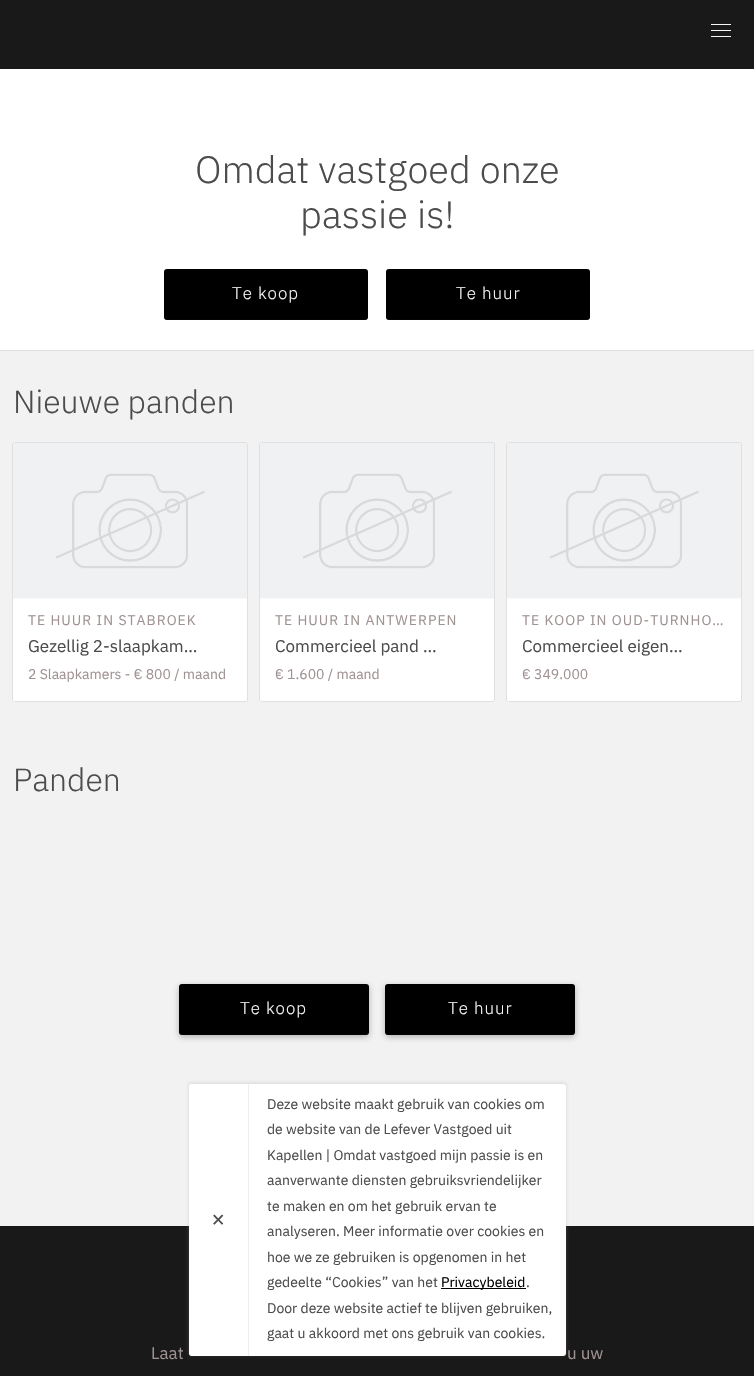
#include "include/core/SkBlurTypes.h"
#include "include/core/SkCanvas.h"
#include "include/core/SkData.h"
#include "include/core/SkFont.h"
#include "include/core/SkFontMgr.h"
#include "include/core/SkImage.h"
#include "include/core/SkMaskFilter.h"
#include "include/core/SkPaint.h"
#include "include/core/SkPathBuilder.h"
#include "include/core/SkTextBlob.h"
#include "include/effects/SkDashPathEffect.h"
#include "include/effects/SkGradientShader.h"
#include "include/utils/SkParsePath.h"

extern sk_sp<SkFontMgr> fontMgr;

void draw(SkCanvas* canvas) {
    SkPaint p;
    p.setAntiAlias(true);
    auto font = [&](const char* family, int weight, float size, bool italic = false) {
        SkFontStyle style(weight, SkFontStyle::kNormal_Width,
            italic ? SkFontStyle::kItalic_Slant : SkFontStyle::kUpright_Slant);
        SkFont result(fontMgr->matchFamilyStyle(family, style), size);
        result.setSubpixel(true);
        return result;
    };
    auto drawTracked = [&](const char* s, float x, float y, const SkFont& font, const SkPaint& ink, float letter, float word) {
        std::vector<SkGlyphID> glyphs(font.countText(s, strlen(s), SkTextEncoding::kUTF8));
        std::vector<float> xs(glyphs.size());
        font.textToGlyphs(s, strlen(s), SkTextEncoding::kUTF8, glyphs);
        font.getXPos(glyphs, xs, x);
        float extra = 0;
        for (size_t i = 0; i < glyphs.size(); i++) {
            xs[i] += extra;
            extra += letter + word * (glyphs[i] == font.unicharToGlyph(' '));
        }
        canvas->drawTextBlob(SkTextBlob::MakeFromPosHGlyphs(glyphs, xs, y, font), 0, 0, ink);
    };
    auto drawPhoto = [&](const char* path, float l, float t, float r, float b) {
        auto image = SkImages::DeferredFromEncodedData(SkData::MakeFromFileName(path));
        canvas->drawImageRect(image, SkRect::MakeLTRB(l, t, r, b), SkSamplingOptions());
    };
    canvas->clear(0xFFFFFFFF);
    {
        const struct { float l, t, r, b; SkColor color; } items[] = {
            {0, 0, 754, 69, 0xFF1A1919},
            {711, 24, 731, 25, 0xFFF7F7F7},
            {711, 30, 731, 31, 0xFFF7F7F7},
            {711, 36, 731, 37, 0xFFF7F7F7},
            {0, 350, 754, 351, 0xFFE0E0E0},
        };
        for (auto [l, t, r, b, color] : items) {
            p.setColor(color);
            canvas->drawRect(SkRect::MakeLTRB(l, t, r, b), p);
        }
    }
    auto font1 = font("IBM Plex Sans", 300, 38);
    p.setColor(0xFF4D4C4C);
    canvas->drawString("Omdat vastgoed onze", 195, 183, font1, p);
    canvas->drawString("passie is!", 300, 228, font1, p);
    p.setColor(0xFF000000);
    canvas->drawRoundRect(SkRect::MakeLTRB(164, 269, 368, 320), 3, 3, p);
    p.setColor(0x540D0E0F);
    canvas->drawPath(SkPathBuilder().moveTo(164, 316).cubicTo(164, 318, 165, 320, 167, 320).lineTo(365, 320).cubicTo(367, 320, 368, 318, 368, 316).cubicTo(368, 318, 367, 319, 365, 319).lineTo(167, 319).cubicTo(165, 319, 164, 318, 164, 316).close().detach(), p);
    auto font2 = font("IBM Plex Sans", 300, 17);
    p.setColor(0xFFF7F7F7);
    drawTracked("Te koop", 232, 299, font2, p, 1, 0);
    p.setColor(0xFF000000);
    canvas->drawRoundRect(SkRect::MakeLTRB(386, 269, 590, 320), 3, 3, p);
    p.setColor(0x540D0E0F);
    canvas->drawPath(SkPathBuilder().moveTo(386, 316).cubicTo(386, 318, 387, 320, 389, 320).lineTo(587, 320).cubicTo(589, 320, 590, 318, 590, 316).cubicTo(590, 318, 589, 319, 587, 319).lineTo(389, 319).cubicTo(387, 319, 386, 318, 386, 316).close().detach(), p);
    p.setColor(0xFFF7F7F7);
    drawTracked("Te huur", 456, 299, font2, p, 1, 0);
    p.setColor(0xFFF2F2F2);
    canvas->drawRect(SkRect::MakeLTRB(0, 351, 754, 1226), p);
    auto font3 = font("IBM Plex Sans", 300, 32);
    p.setColor(0xFF4D4C4C);
    canvas->drawString("Nieuwe panden", 13, 413, font3, p);
    p.setColor(0xFFE0E0E0);
    canvas->drawPath(SkPathBuilder().moveTo(15, 442).cubicTo(13, 442, 12, 443, 12, 445).lineTo(12, 699).cubicTo(12, 701, 14, 702, 16, 702).cubicTo(14, 702, 13, 701, 13, 699).lineTo(13, 445).cubicTo(13, 443, 14, 442, 16, 442).close().detach(), p);
    canvas->drawPath(SkPathBuilder().moveTo(244, 702).lineTo(245, 702).cubicTo(247, 702, 248, 701, 248, 699).lineTo(248, 445).cubicTo(248, 443, 247, 442, 245, 442).lineTo(244, 442).cubicTo(246, 442, 247, 443, 247, 445).lineTo(247, 699).cubicTo(247, 701, 246, 702, 244, 702).close().detach(), p);
    canvas->drawRect(SkRect::MakeLTRB(15, 442, 246, 443), p);
    canvas->drawRect(SkRect::MakeLTRB(15, 701, 246, 702), p);
    drawPhoto("media/1.png", 13, 443, 247, 599);
    p.setColor(0xFFFFFFFF);
    canvas->drawPath(SkPathBuilder().moveTo(13, 599).lineTo(13, 699).cubicTo(13, 700, 14, 701, 16, 701).lineTo(244, 701).cubicTo(246, 701, 247, 700, 247, 699).lineTo(247, 599).close().detach(), p);
    auto font4 = font("IBM Plex Sans", 400, 14);
    p.setColor(0xFFA09292);
    drawTracked("TE HUUR IN STABROEK", 28, 625, font4, p, 1, 0);
    auto font5 = font("IBM Plex Sans", 400, 17);
    p.setColor(0xFF4D4C4C);
    canvas->drawString("Gezellig 2-slaapkam…", 28, 652, font5, p);
    p.setColor(0xFFA09292);
    canvas->drawString("2 Slaapkamers - € 800 / maand", 28, 679, font4, p);
    p.setColor(0xFFE0E0E0);
    canvas->drawPath(SkPathBuilder().moveTo(262, 442).cubicTo(260, 442, 259, 443, 259, 445).lineTo(259, 699).cubicTo(259, 701, 261, 702, 263, 702).cubicTo(261, 702, 260, 701, 260, 699).lineTo(260, 445).cubicTo(260, 443, 261, 442, 263, 442).close().detach(), p);
    canvas->drawPath(SkPathBuilder().moveTo(491, 702).lineTo(492, 702).cubicTo(494, 702, 495, 701, 495, 699).lineTo(495, 445).cubicTo(495, 443, 494, 442, 492, 442).lineTo(491, 442).cubicTo(493, 442, 494, 443, 494, 445).lineTo(494, 699).cubicTo(494, 701, 493, 702, 491, 702).close().detach(), p);
    canvas->drawRect(SkRect::MakeLTRB(262, 442, 493, 443), p);
    canvas->drawRect(SkRect::MakeLTRB(262, 701, 493, 702), p);
    drawPhoto("media/1.png", 260, 443, 494, 599);
    p.setColor(0xFFFFFFFF);
    canvas->drawPath(SkPathBuilder().moveTo(260, 599).lineTo(260, 699).cubicTo(260, 700, 261, 701, 263, 701).lineTo(491, 701).cubicTo(493, 701, 494, 700, 494, 699).lineTo(494, 599).close().detach(), p);
    p.setColor(0xFFA09292);
    drawTracked("TE HUUR IN ANTWERPEN", 275, 625, font4, p, 1, 0);
    p.setColor(0xFF4D4C4C);
    canvas->drawString("Commercieel pand …", 275, 652, font5, p);
    p.setColor(0xFFA09292);
    canvas->drawString("€ 1.600 / maand", 275, 679, font4, p);
    p.setColor(0xFFE0E0E0);
    canvas->drawPath(SkPathBuilder().moveTo(509, 442).cubicTo(507, 442, 506, 443, 506, 445).lineTo(506, 699).cubicTo(506, 701, 508, 702, 510, 702).cubicTo(508, 702, 507, 701, 507, 699).lineTo(507, 445).cubicTo(507, 443, 508, 442, 510, 442).close().detach(), p);
    canvas->drawPath(SkPathBuilder().moveTo(738, 702).lineTo(739, 702).cubicTo(741, 702, 742, 701, 742, 699).lineTo(742, 445).cubicTo(742, 443, 741, 442, 739, 442).lineTo(738, 442).cubicTo(740, 442, 741, 443, 741, 445).lineTo(741, 699).cubicTo(741, 701, 740, 702, 738, 702).close().detach(), p);
    canvas->drawRect(SkRect::MakeLTRB(509, 442, 740, 443), p);
    canvas->drawRect(SkRect::MakeLTRB(509, 701, 740, 702), p);
    drawPhoto("media/1.png", 507, 443, 741, 599);
    p.setColor(0xFFFFFFFF);
    canvas->drawPath(SkPathBuilder().moveTo(507, 599).lineTo(507, 699).cubicTo(507, 700, 508, 701, 510, 701).lineTo(738, 701).cubicTo(740, 701, 741, 700, 741, 699).lineTo(741, 599).close().detach(), p);
    p.setColor(0xFFA09292);
    drawTracked("TE KOOP IN OUD-TURNHO…", 522, 625, font4, p, 1, 0);
    p.setColor(0xFF4D4C4C);
    canvas->drawString("Commercieel eigen…", 522, 652, font5, p);
    p.setColor(0xFFA09292);
    canvas->drawString("€ 349.000", 522, 679, font4, p);
    p.setColor(0xFF4D4C4C);
    canvas->drawString("Panden", 13, 791, font3, p);
    p.setColor(0x664D4C4C);
    p.setMaskFilter(SkMaskFilter::MakeBlur(kNormal_SkBlurStyle, 3));
    canvas->drawRoundRect(SkRect::MakeLTRB(179, 986, 369, 1037), 3, 3, p);
    p.setMaskFilter(nullptr);
    p.setColor(0xFF000000);
    canvas->drawRoundRect(SkRect::MakeLTRB(179, 984, 369, 1035), 3, 3, p);
    p.setColor(0x540D0E0F);
    canvas->drawPath(SkPathBuilder().moveTo(179, 1031).cubicTo(179, 1033, 180, 1035, 182, 1035).lineTo(366, 1035).cubicTo(368, 1035, 369, 1033, 369, 1031).cubicTo(369, 1033, 368, 1034, 366, 1034).lineTo(182, 1034).cubicTo(180, 1034, 179, 1033, 179, 1031).close().detach(), p);
    p.setColor(0xFFF7F7F7);
    drawTracked("Te koop", 240, 1014, font2, p, 1, 0);
    p.setColor(0x664D4C4C);
    p.setMaskFilter(SkMaskFilter::MakeBlur(kNormal_SkBlurStyle, 3));
    canvas->drawRoundRect(SkRect::MakeLTRB(385, 986, 575, 1037), 3, 3, p);
    p.setMaskFilter(nullptr);
    p.setColor(0xFF000000);
    canvas->drawRoundRect(SkRect::MakeLTRB(385, 984, 575, 1035), 3, 3, p);
    p.setColor(0x540D0E0F);
    canvas->drawPath(SkPathBuilder().moveTo(385, 1031).cubicTo(385, 1033, 386, 1035, 388, 1035).lineTo(572, 1035).cubicTo(574, 1035, 575, 1033, 575, 1031).cubicTo(575, 1033, 574, 1034, 572, 1034).lineTo(388, 1034).cubicTo(386, 1034, 385, 1033, 385, 1031).close().detach(), p);
    p.setColor(0xFFF7F7F7);
    drawTracked("Te huur", 448, 1014, font2, p, 1, 0);
    p.setColor(0xFF1A1919);
    canvas->drawRect(SkRect::MakeLTRB(0, 1226, 754, 1376), p);
    p.setColor(0xFFA09292);
    canvas->drawString("Laat", 151, 1359, font5, p);
    canvas->drawString("u uw", 567, 1359, font5, p);
    p.setColor(0x33A09292);
    p.setMaskFilter(SkMaskFilter::MakeBlur(kNormal_SkBlurStyle, 1.5f));
    canvas->drawRoundRect(SkRect::MakeLTRB(188, 1082, 567, 1356), 4, 4, p);
    p.setMaskFilter(nullptr);
    p.setColor(0xFFFFFFFF);
    canvas->drawRoundRect(SkRect::MakeLTRB(189, 1084, 566, 1356), 3, 3, p);
    canvas->drawPath(SkPathBuilder().moveTo(192, 1084).lineTo(249, 1084).lineTo(249, 1356).lineTo(192, 1356).cubicTo(190.5f, 1356, 189, 1354.5f, 189, 1353).lineTo(189, 1087).cubicTo(189, 1085.5f, 190.5f, 1084, 192, 1084).close().detach(), p);
    p.setColor(0xFFEEEEEE);
    canvas->drawRect(SkRect::MakeLTRB(248, 1084, 249, 1356), p);
    auto font6 = font("IBM Plex Sans", 400, 24);
    p.setColor(0xFF4D4C4C);
    canvas->drawString("×", 211, 1227, font6, p);
    {
        const struct { const char* s; float x, y; } items[] = {
            {"Deze website maakt gebruik van cookies om", 267, 1109},
            {"de website van de Lefever Vastgoed uit", 267, 1134},
            {"Kapellen | Omdat vastgoed mijn passie is en", 267, 1160},
            {"aanverwante diensten gebruiksvriendelijker", 267, 1185},
            {"te maken en om het gebruik ervan te", 267, 1211},
            {"analyseren. Meer informatie over cookies en", 267, 1236},
            {"hoe we ze gebruiken is opgenomen in het", 267, 1262},
            {"gedeelte “Cookies” van het", 267, 1287},
        };
        for (auto [s, x, y] : items) {
            canvas->drawString(s, x, y, font4, p);
        }
    }
    p.setColor(0xFF000000);
    canvas->drawRect(SkRect::MakeLTRB(441, 1288, 526, 1289), p);
    canvas->drawString("Privacybeleid", 441, 1287, font4, p);
    p.setColor(0xFF4D4C4C);
    {
        const struct { const char* s; float x, y; } items[] = {
            {".", 526, 1287},
            {"Door deze website actief te blijven gebruiken,", 267, 1313},
            {"gaat u akkoord met ons gebruik van cookies.", 267, 1338},
        };
        for (auto [s, x, y] : items) {
            canvas->drawString(s, x, y, font4, p);
        }
    }
}
